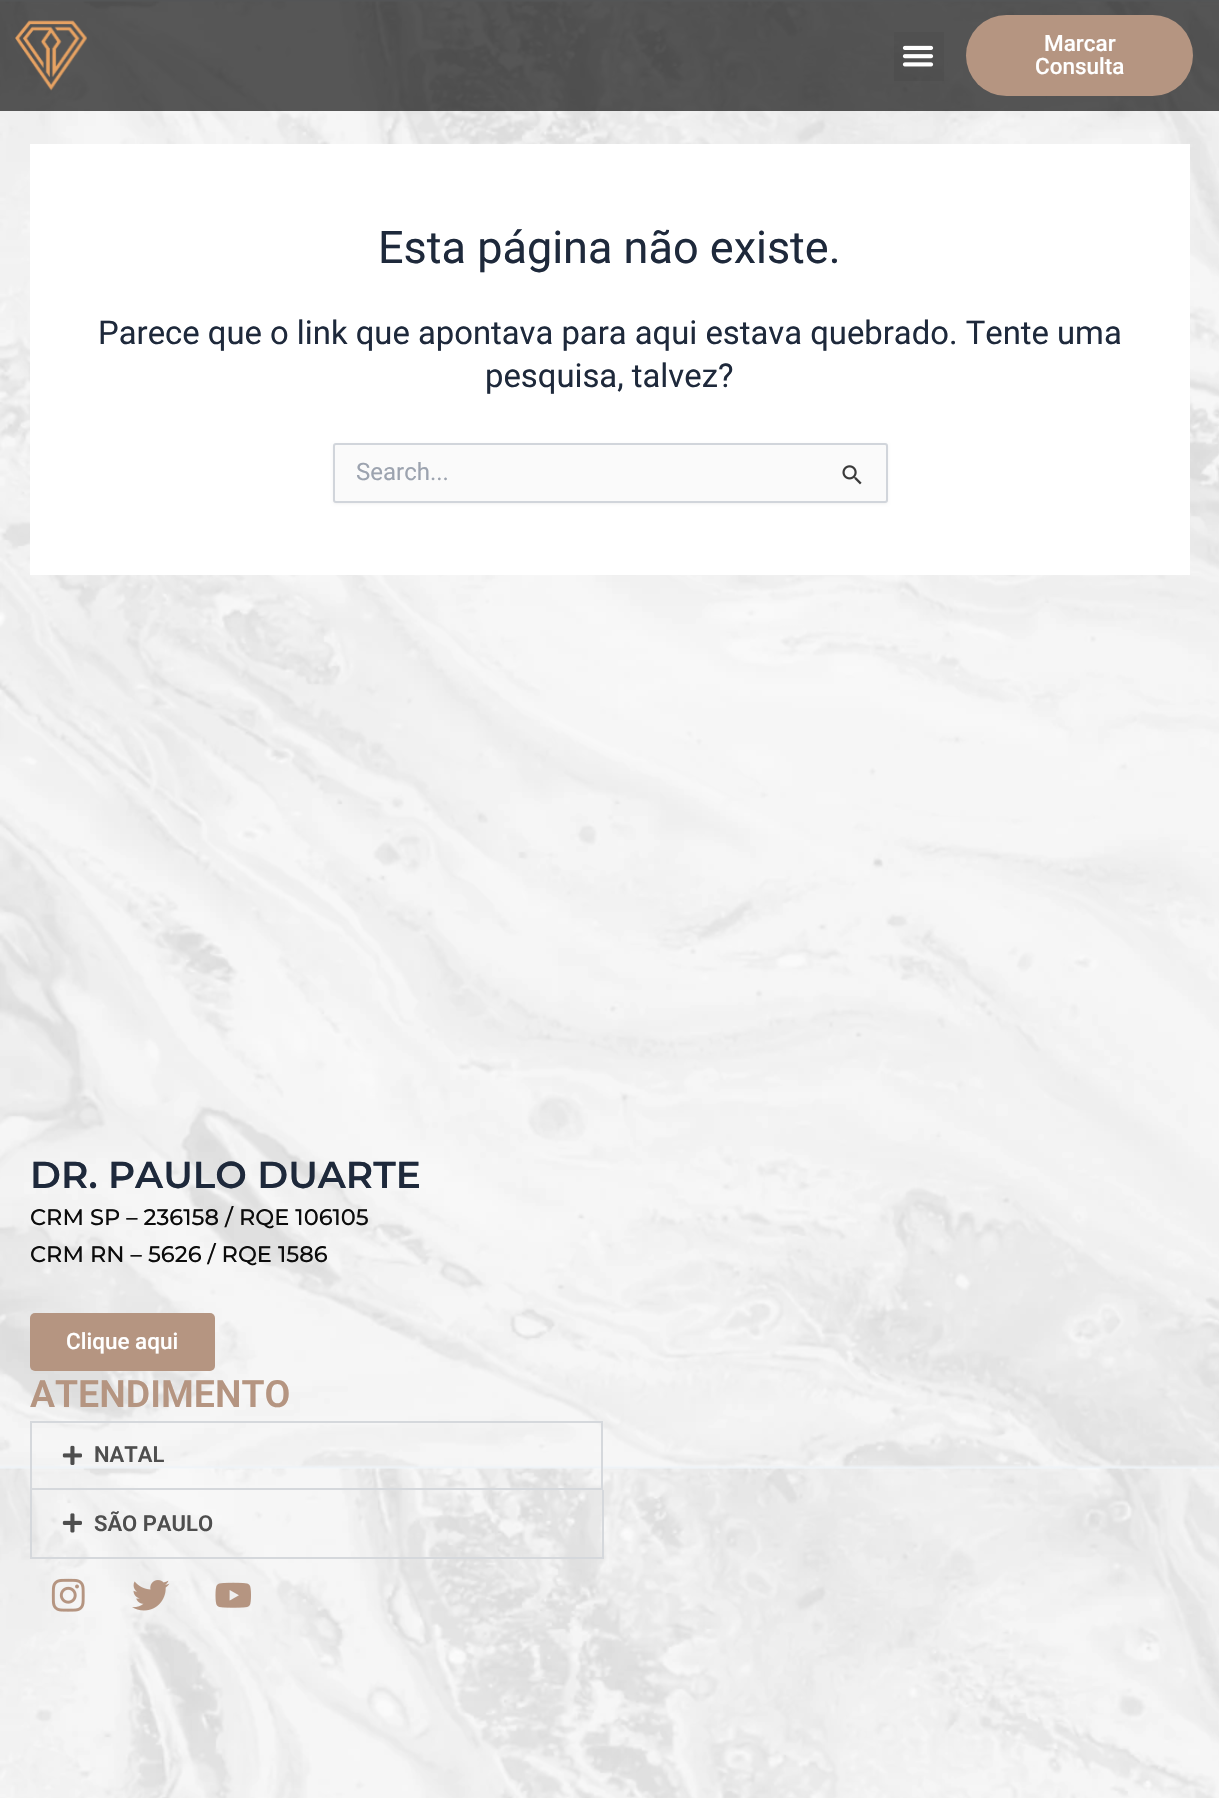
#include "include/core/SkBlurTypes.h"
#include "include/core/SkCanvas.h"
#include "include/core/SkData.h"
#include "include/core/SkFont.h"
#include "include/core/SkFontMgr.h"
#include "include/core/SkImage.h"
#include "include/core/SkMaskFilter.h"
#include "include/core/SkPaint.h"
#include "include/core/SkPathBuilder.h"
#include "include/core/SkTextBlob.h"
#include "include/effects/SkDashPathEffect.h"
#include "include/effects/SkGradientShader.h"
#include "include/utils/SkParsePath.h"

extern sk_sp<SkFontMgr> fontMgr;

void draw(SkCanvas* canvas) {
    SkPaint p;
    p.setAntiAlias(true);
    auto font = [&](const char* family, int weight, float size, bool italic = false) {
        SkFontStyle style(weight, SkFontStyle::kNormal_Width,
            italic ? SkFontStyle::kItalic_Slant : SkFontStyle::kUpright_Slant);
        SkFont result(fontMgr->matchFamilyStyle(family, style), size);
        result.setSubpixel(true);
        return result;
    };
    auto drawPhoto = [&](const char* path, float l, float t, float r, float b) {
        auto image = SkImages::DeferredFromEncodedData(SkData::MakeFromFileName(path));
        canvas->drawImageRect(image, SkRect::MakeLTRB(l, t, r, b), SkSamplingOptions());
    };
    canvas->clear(0xFFF0F5FA);
    drawPhoto("media/1.png", 0, 0, 1219, 1798);
    p.setColor(0xA6000000);
    canvas->drawRect(SkRect::MakeLTRB(0, 0, 1219, 111), p);
    drawPhoto("media/2.png", 15, 20, 87, 91);
    p.setColor(0x0D000000);
    canvas->drawRect(SkRect::MakeLTRB(894, 32, 944, 81), p);
    drawPhoto("media/3.png", 902, 45, 934, 67);
    p.setColor(0xFFB59581);
    canvas->drawRoundRect(SkRect::MakeLTRB(966, 15, 1193, 96), 40.5f, 40.5f, p);
    auto font1 = font("Roboto", 500, 22.5f);
    p.setColor(0xFFFFFFFF);
    canvas->drawString("Marcar", 1044, 51, font1, p);
    canvas->drawString("Consulta", 1035, 74, font1, p);
    canvas->drawRect(SkRect::MakeLTRB(30, 144, 1190, 575), p);
    auto font2 = font("Roboto", 400, 45);
    p.setColor(0xFF1E293B);
    canvas->drawString("Esta página não existe.", 378, 263, font2, p);
    auto font3 = font("Roboto", 400, 32.8f);
    canvas->drawString("Parece que o link que apontava para aqui estava quebrado. Tente uma", 98, 344, font3, p);
    canvas->drawString("pesquisa, talvez?", 485, 387, font3, p);
    p.setColor(0x0D000000);
    p.setMaskFilter(SkMaskFilter::MakeBlur(kNormal_SkBlurStyle, 1.5f));
    canvas->drawRoundRect(SkRect::MakeLTRB(333, 444, 888, 504), 3, 3, p);
    p.setMaskFilter(nullptr);
    p.setColor(0xFFFAFAFA);
    canvas->drawRoundRect(SkRect::MakeLTRB(334, 444, 887, 502), 2, 2, p);
    p.setStyle(SkPaint::kStroke_Style);
    p.setStrokeWidth(2);
    p.setColor(0xFFD1D5DB);
    canvas->drawRoundRect(SkRect::MakeLTRB(334, 444, 887, 502), 2, 2, p);
    auto font4 = font("Roboto", 400, 24);
    p.setStyle(SkPaint::kFill_Style);
    p.setColor(0xFF9CA3AF);
    canvas->drawString("Search...", 356, 480, font4, p);
    drawPhoto("media/4.png", 842, 465, 862, 485);
    auto font5 = font("Montserrat", 600, 37.5f);
    p.setColor(0xFF1E293B);
    canvas->drawString("DR. PAULO DUARTE", 30, 1188, font5, p);
    auto font6 = font("Montserrat", 500, 22.5f);
    p.setColor(0xFF0C0C0C);
    canvas->drawString("CRM SP – 236158 / RQE 106105", 30, 1225, font6, p);
    canvas->drawString("CRM RN – 5626 / RQE 1586", 30, 1262, font6, p);
    p.setColor(0xFFB59581);
    canvas->drawRoundRect(SkRect::MakeLTRB(30, 1313, 215, 1371), 5, 5, p);
    p.setColor(0xFFFFFFFF);
    canvas->drawString("Clique aqui", 66, 1349, font1, p);
    auto font7 = font("Roboto", 600, 37.5f);
    p.setColor(0xFFB59581);
    canvas->drawString("ATENDIMENTO", 30, 1407, font7, p);
    p.setStyle(SkPaint::kStroke_Style);
    p.setColor(0xFFD5D8DC);
    canvas->drawRect(SkRect::MakeLTRB(31, 1422, 602, 1489), p);
    drawPhoto("media/5.png", 62, 1445, 82, 1465);
    auto font8 = font("Roboto", 600, 22);
    p.setStyle(SkPaint::kFill_Style);
    p.setColor(0xFF4E4E4E);
    canvas->drawString("NATAL", 94, 1462, font8, p);
    {
        const struct { float l, t, r, b; SkColor color; } items[] = {
            {602, 1490, 604, 1559, 0xFFD5D8DC},
            {30, 1557, 603, 1559, 0xFFD5D8DC},
            {30, 1490, 32, 1559, 0xFFD5D8DC},
        };
        for (auto [l, t, r, b, color] : items) {
            p.setColor(color);
            canvas->drawRect(SkRect::MakeLTRB(l, t, r, b), p);
        }
    }
    drawPhoto("media/6.png", 62, 1513, 82, 1533);
    p.setColor(0xFF4E4E4E);
    canvas->drawString("SÃO PAULO", 94, 1531, font8, p);
    drawPhoto("media/7.png", 51, 1578, 85, 1612);
    drawPhoto("media/8.png", 132, 1580, 170, 1611);
    drawPhoto("media/9.png", 215, 1582, 251, 1608);
}
